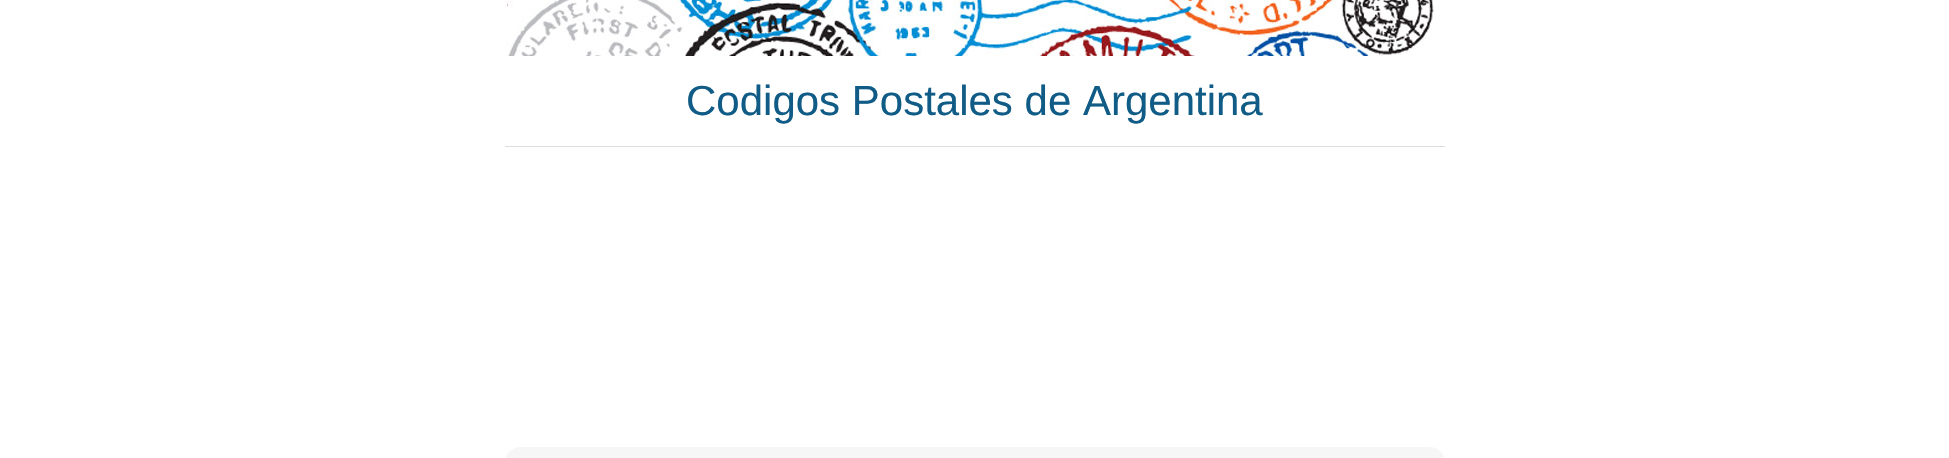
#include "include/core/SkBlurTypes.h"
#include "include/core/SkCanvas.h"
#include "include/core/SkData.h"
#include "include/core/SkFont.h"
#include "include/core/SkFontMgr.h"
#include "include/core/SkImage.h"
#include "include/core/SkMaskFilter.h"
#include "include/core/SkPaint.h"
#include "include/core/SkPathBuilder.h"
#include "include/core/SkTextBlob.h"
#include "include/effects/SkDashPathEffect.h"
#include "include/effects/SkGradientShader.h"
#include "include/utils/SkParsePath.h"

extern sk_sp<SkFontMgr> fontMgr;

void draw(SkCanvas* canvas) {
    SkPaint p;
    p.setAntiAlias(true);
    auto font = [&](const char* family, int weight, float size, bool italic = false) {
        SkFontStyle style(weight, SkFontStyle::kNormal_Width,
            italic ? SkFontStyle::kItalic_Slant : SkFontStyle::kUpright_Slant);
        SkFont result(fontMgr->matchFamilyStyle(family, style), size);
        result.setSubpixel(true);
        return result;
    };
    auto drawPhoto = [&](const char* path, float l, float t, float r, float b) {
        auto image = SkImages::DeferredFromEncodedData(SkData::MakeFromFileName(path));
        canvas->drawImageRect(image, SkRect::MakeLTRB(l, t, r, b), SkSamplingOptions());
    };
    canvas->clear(0xFFFFFFFF);
    drawPhoto("media/1.png", 505, 0, 1434, 56);
    p.setColor(0xFFDDDDDD);
    canvas->drawRect(SkRect::MakeLTRB(505, 146, 1445, 147), p);
    auto font1 = font("Liberation Sans", 400, 42);
    p.setColor(0xFF105C86);
    canvas->drawString("Codigos Postales de Argentina", 686, 115, font1, p);
    p.setColor(0xFFF7F6F6);
    canvas->drawRoundRect(SkRect::MakeLTRB(505, 447, 1445, 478), 20, 20, p);
}
